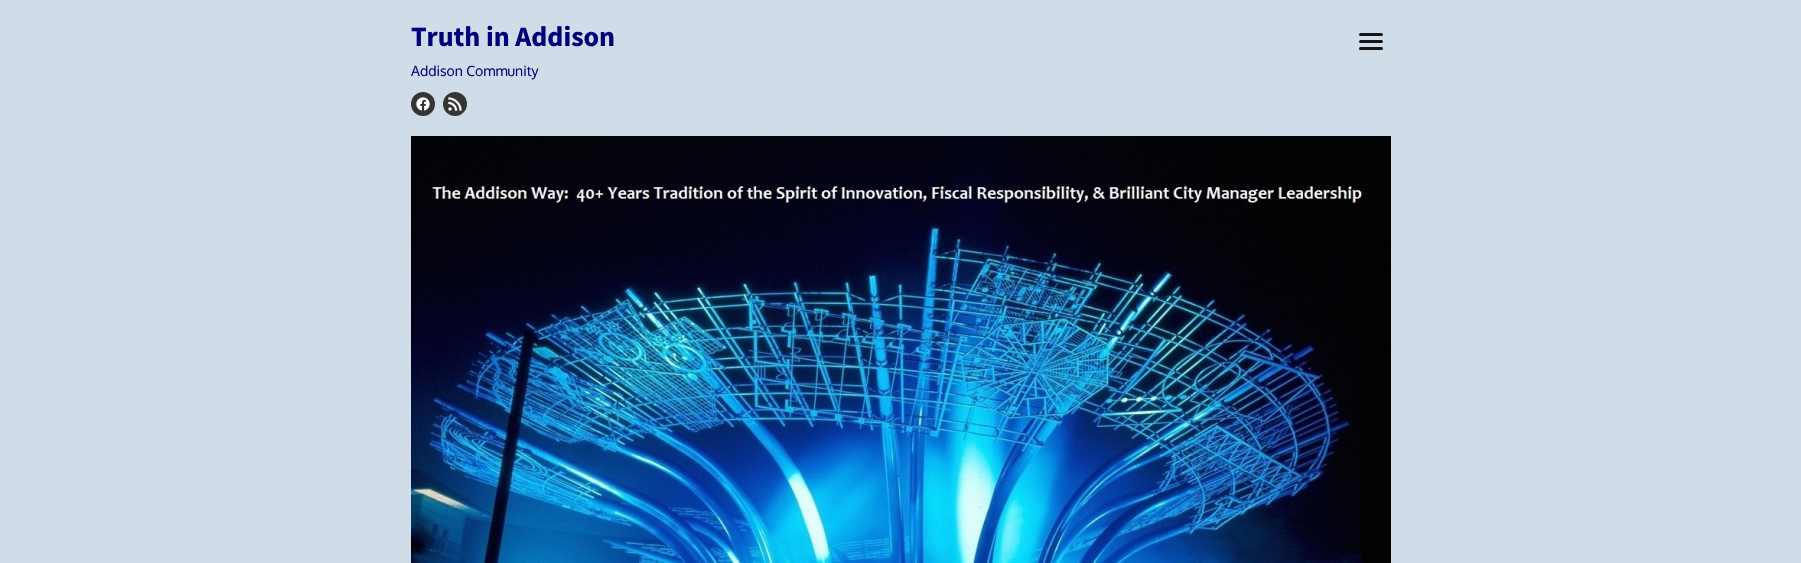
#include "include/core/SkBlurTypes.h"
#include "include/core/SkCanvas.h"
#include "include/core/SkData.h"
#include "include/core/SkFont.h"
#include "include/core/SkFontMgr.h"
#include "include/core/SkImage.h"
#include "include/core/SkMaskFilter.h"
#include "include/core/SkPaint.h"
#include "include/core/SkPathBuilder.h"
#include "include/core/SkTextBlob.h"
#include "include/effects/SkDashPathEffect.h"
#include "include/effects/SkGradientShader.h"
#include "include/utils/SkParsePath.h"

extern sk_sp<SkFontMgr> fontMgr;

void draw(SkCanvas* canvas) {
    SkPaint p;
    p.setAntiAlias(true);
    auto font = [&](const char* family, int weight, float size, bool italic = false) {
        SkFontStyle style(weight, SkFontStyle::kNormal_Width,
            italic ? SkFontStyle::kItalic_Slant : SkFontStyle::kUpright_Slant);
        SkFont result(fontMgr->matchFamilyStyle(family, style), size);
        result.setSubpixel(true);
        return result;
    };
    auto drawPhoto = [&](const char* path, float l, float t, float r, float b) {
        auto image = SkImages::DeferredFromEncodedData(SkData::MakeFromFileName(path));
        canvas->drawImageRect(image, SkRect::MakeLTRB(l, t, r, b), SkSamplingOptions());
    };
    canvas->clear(0xFFD0DDE8);
    auto font1 = font("Source Sans Pro", 700, 28);
    p.setColor(0xFF00007F);
    canvas->drawString("Truth in Addison", 411, 46, font1, p);
    auto font2 = font("Oxygen", 400, 14);
    canvas->drawString("Addison Community", 411, 76, font2, p);
    p.setColor(0xFF353535);
    canvas->drawCircle(423, 104, 12, p);
    drawPhoto("media/1.png", 416, 97, 430, 111);
    canvas->drawCircle(455, 104, 12, p);
    drawPhoto("media/2.png", 448, 97, 462, 111);
    p.setColor(0xFF151515);
    canvas->drawRoundRect(SkRect::MakeLTRB(1359, 40, 1383, 43), 1.5f, 1.5f, p);
    canvas->drawRoundRect(SkRect::MakeLTRB(1359, 33, 1383, 36), 1.5f, 1.5f, p);
    canvas->drawRoundRect(SkRect::MakeLTRB(1359, 47, 1383, 50), 1.5f, 1.5f, p);
    drawPhoto("media/3.png", 411, 136, 1391, 563);
}
